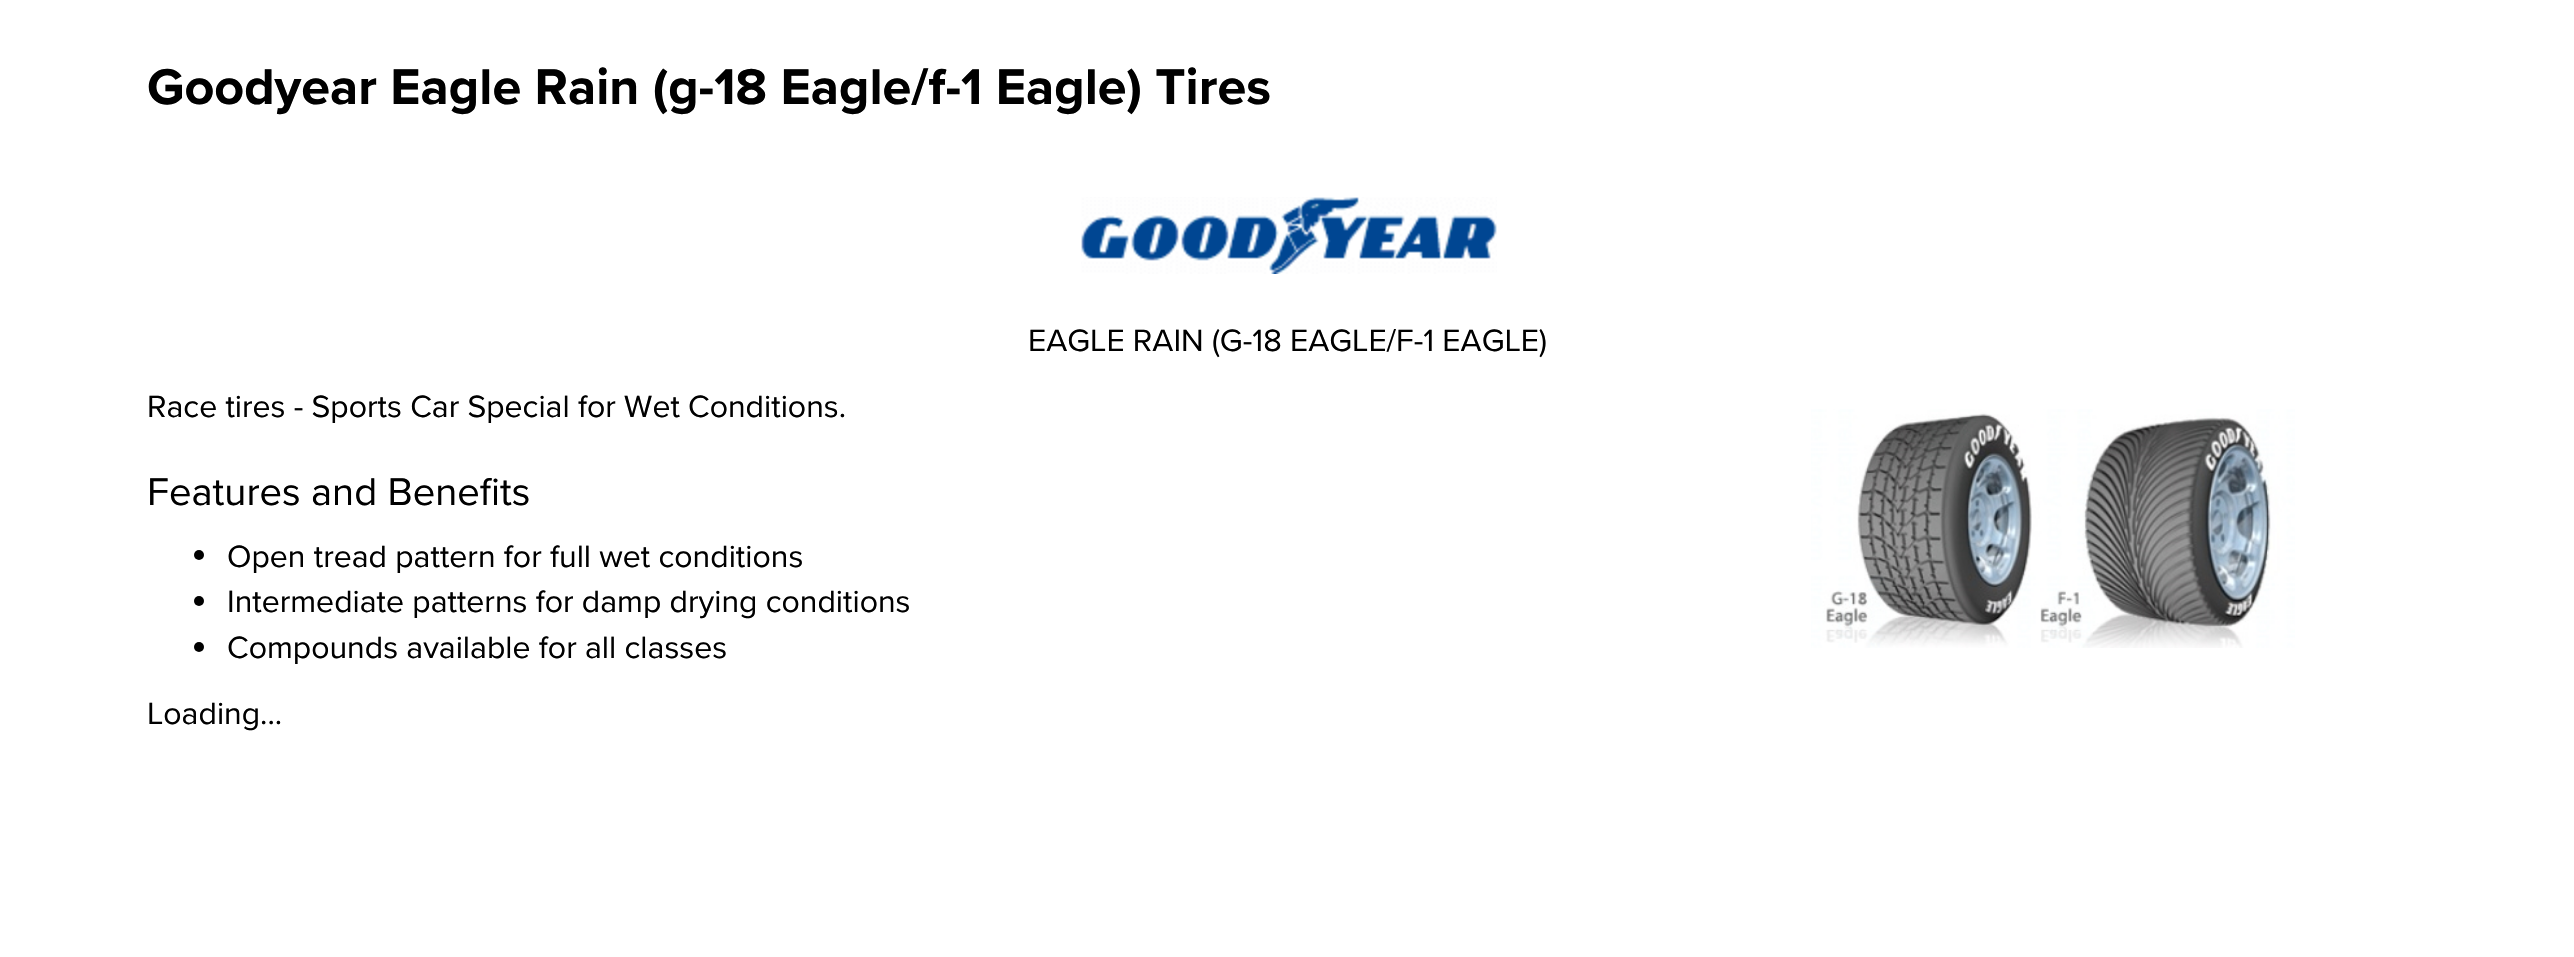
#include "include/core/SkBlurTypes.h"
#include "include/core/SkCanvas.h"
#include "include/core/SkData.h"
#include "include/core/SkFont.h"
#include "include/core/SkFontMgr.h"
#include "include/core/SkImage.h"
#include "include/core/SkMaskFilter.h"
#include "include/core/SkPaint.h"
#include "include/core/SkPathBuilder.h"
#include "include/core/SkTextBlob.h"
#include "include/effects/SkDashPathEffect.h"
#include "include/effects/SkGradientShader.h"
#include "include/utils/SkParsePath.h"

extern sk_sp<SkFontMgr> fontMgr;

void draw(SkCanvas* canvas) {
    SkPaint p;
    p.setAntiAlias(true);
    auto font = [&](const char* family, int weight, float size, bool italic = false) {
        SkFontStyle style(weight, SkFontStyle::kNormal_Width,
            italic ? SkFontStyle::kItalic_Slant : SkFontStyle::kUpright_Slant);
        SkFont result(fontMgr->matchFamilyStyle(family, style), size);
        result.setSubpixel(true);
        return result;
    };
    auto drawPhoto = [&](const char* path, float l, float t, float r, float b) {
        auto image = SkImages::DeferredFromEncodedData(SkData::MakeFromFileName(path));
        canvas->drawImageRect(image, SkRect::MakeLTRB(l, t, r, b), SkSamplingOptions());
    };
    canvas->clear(0xFFFFFFFF);
    auto font1 = font("Proxima Nova", 700, 52);
    p.setColor(0xFF000000);
    canvas->drawString("Goodyear Eagle Rain (g-18 Eagle/f-1 Eagle) Tires", 147, 104, font1, p);
    drawPhoto("media/1.png", 1081, 197, 1497, 274);
    auto font2 = font("Proxima Nova", 400, 32);
    canvas->drawString("EAGLE RAIN (G-18 EAGLE/F-1 EAGLE)", 1028, 351, font2, p);
    canvas->drawString("Race tires - Sports Car Special for Wet Conditions.", 147, 417, font2, p);
    auto font3 = font("Proxima Nova", 400, 40);
    canvas->drawString("Features and Benefits", 147, 505, font3, p);
    canvas->drawCircle(199, 555, 5, p);
    canvas->drawString("Open tread pattern for full wet conditions", 227, 567, font2, p);
    canvas->drawCircle(199, 601, 5, p);
    canvas->drawString("Intermediate patterns for damp drying conditions", 227, 612, font2, p);
    canvas->drawCircle(199, 647, 5, p);
    canvas->drawString("Compounds available for all classes", 227, 658, font2, p);
    canvas->drawString("Loading...", 147, 724, font2, p);
    drawPhoto("media/2.png", 1811, 409, 2295, 648);
}
